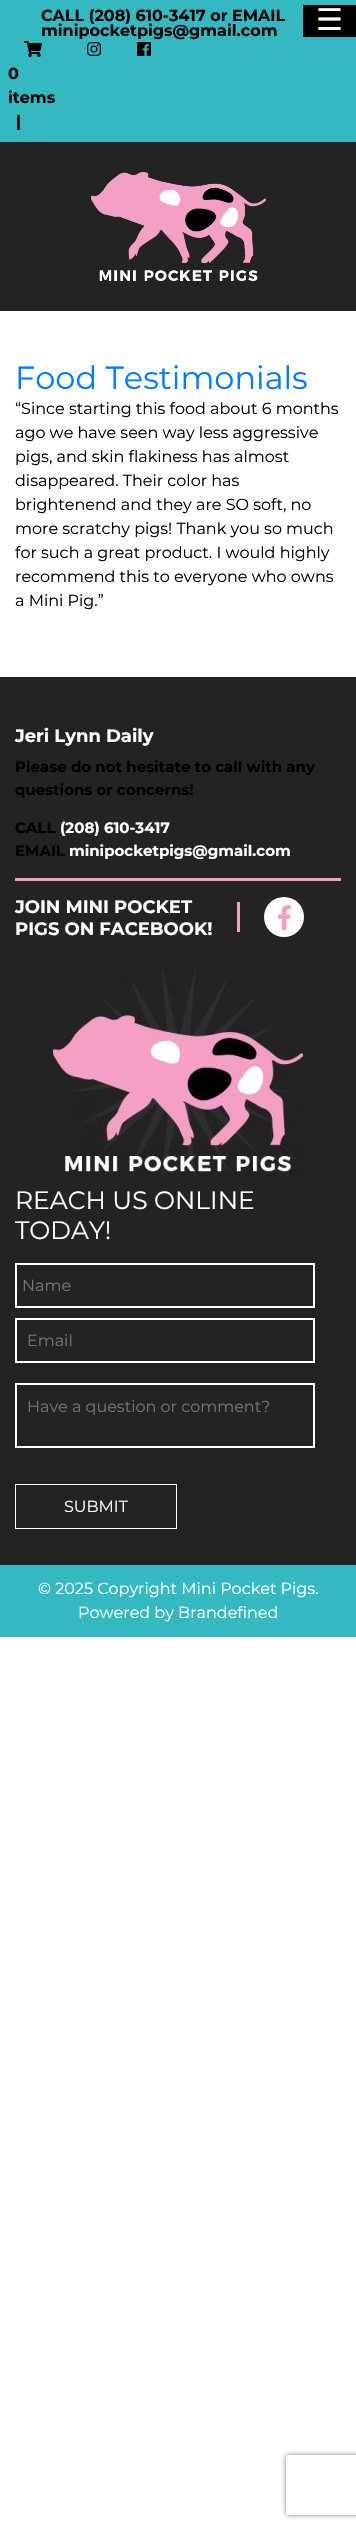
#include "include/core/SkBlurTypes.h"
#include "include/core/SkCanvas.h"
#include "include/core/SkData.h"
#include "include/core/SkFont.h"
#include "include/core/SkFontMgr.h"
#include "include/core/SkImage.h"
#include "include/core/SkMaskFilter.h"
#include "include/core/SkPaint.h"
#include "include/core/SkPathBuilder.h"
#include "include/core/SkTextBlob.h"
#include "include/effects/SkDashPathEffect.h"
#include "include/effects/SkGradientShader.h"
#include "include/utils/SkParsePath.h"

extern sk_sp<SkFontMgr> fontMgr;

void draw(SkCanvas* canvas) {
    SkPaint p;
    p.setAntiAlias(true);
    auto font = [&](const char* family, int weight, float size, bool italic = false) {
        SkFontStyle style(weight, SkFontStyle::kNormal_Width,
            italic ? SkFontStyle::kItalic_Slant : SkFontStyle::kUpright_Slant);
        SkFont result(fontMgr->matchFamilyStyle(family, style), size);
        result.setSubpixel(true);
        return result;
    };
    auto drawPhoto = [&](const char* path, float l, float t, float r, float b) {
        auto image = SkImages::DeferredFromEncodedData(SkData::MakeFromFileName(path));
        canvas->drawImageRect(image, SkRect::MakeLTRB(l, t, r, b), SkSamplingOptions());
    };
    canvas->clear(0xFFFFFFFF);
    p.setColor(0xFF34B8C1);
    canvas->drawRect(SkRect::MakeLTRB(0, 0, 356, 142), p);
    auto font1 = font("Montserrat", 700, 16);
    p.setColor(0xFF000000);
    {
        const struct { const char* s; float x, y; } items[] = {
            {"CALL (208) 610-3417 or", 41, 21},
            {"EMAIL", 232, 21},
            {"minipocketpigs@gmail.com", 41, 36},
        };
        for (auto [s, x, y] : items) {
            canvas->drawString(s, x, y, font1, p);
        }
    }
    drawPhoto("media/1.png", 87, 42, 101, 56);
    drawPhoto("media/2.png", 137, 42, 151, 56);
    drawPhoto("media/3.png", 24, 41, 42, 57);
    {
        const struct { const char* s; float x, y; } items[] = {
            {"0", 8, 79},
            {"items", 8, 103},
            {"|", 16, 127},
        };
        for (auto [s, x, y] : items) {
            canvas->drawString(s, x, y, font1, p);
        }
    }
    canvas->drawRect(SkRect::MakeLTRB(303, 5, 356, 37), p);
    auto font2 = font("DejaVu Sans", 400, 30);
    p.setColor(0xFFFFFFFF);
    canvas->drawString("☰", 316, 30, font2, p);
    p.setColor(0xFF232323);
    canvas->drawRect(SkRect::MakeLTRB(0, 142, 356, 311), p);
    drawPhoto("media/4.png", 91, 172, 266, 281);
    auto font3 = font("Montserrat", 400, 32);
    p.setColor(0xFF007BFF);
    canvas->drawString("Food Testimonials", 15, 389, font3, p);
    auto font4 = font("Montserrat", 400, 16);
    p.setColor(0xFF000000);
    {
        const struct { const char* s; float x, y; } items[] = {
            {"“Since starting this food about 6 months", 15, 414},
            {"ago we have seen way less aggressive", 15, 438},
            {"pigs, and skin flakiness has almost", 15, 462},
            {"disappeared. Their color has", 15, 486},
            {"brightenend and they are SO soft, no", 15, 510},
            {"more scratchy pigs! Thank you so much", 15, 534},
            {"for such a great product. I would highly", 15, 558},
            {"recommend this to everyone who owns", 15, 582},
            {"a Mini Pig.”", 15, 606},
        };
        for (auto [s, x, y] : items) {
            canvas->drawString(s, x, y, font4, p);
        }
    }
    p.setColor(0xFF232323);
    canvas->drawRect(SkRect::MakeLTRB(0, 677, 356, 1565), p);
    auto font5 = font("Montserrat", 700, 18);
    p.setColor(0xFFFFFFFF);
    canvas->drawString("Jeri Lynn Daily", 15, 742, font5, p);
    auto font6 = font("Montserrat", 700, 15);
    p.setColor(0xFF000000);
    {
        const struct { const char* s; float x, y; } items[] = {
            {"Please do not hesitate to call with any", 15, 772},
            {"questions or concerns!", 15, 795},
            {"CALL", 15, 833},
        };
        for (auto [s, x, y] : items) {
            canvas->drawString(s, x, y, font6, p);
        }
    }
    p.setColor(0xFFFFFFFF);
    canvas->drawString("(208) 610-3417", 60, 833, font6, p);
    p.setColor(0xFF000000);
    canvas->drawString("EMAIL", 15, 856, font6, p);
    p.setColor(0xFFFFFFFF);
    canvas->drawString("minipocketpigs@gmail.com", 69, 856, font6, p);
    p.setColor(0xFFF49FC4);
    canvas->drawRect(SkRect::MakeLTRB(15, 878, 341, 881), p);
    p.setColor(0xFFFFFFFF);
    canvas->drawString("JOIN MINI POCKET", 15, 913, font5, p);
    canvas->drawString("PIGS ON FACEBOOK!", 15, 935, font5, p);
    p.setColor(0xFFF49FC4);
    canvas->drawRect(SkRect::MakeLTRB(237, 902, 240, 932), p);
    p.setColor(0xFFFFFFFF);
    canvas->drawCircle(284, 917, 20, p);
    drawPhoto("media/5.png", 278, 905, 291, 931);
    drawPhoto("media/6.png", 53, 970, 303, 1178);
    auto font7 = font("Montserrat", 400, 25);
    canvas->drawString("REACH US ONLINE", 15, 1209, font7, p);
    canvas->drawString("TODAY!", 15, 1239, font7, p);
    p.setStyle(SkPaint::kStroke_Style);
    p.setStrokeWidth(2);
    canvas->drawRect(SkRect::MakeLTRB(16, 1264, 314, 1307), p);
    p.setStyle(SkPaint::kFill_Style);
    p.setColor(0xFF757575);
    canvas->drawString("Name", 22, 1291, font4, p);
    p.setStyle(SkPaint::kStroke_Style);
    p.setColor(0xFFFFFFFF);
    canvas->drawRect(SkRect::MakeLTRB(16, 1319, 314, 1362), p);
    p.setStyle(SkPaint::kFill_Style);
    p.setColor(0xFF757575);
    canvas->drawString("Email", 27, 1346, font4, p);
    p.setStyle(SkPaint::kStroke_Style);
    p.setColor(0xFFFFFFFF);
    canvas->drawRect(SkRect::MakeLTRB(16, 1384, 314, 1447), p);
    p.setStyle(SkPaint::kFill_Style);
    p.setColor(0xFF757575);
    canvas->drawString("Have a question or comment?", 27, 1412, font4, p);
    p.setStyle(SkPaint::kStroke_Style);
    p.setStrokeWidth(1);
    p.setColor(0xFFFFFFFF);
    canvas->drawRect(SkRect::MakeLTRB(15.5f, 1484.5f, 176.5f, 1528.5f), p);
    p.setStyle(SkPaint::kFill_Style);
    canvas->drawString("SUBMIT", 64, 1512, font4, p);
    p.setColor(0xFF34B8C1);
    canvas->drawRect(SkRect::MakeLTRB(0, 1565, 356, 1637), p);
    p.setColor(0xFFFFFFFF);
    canvas->drawString("© 2025 Copyright Mini Pocket Pigs.", 38, 1594, font4, p);
    canvas->drawString("Powered by Brandefined", 78, 1618, font4, p);
    canvas->save();
    canvas->clipPath(SkPathBuilder(SkPathFillType::kEvenOdd).moveTo(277, 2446).lineTo(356, 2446).lineTo(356, 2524).lineTo(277, 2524).close().moveTo(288, 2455).lineTo(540, 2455).cubicTo(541, 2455, 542, 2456, 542, 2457).lineTo(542, 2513).cubicTo(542, 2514, 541, 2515, 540, 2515).lineTo(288, 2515).cubicTo(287, 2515, 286, 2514, 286, 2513).lineTo(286, 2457).cubicTo(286, 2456, 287, 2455, 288, 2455).close().detach(), true);
    p.setColor(0xFF808080);
    p.setMaskFilter(SkMaskFilter::MakeBlur(kNormal_SkBlurStyle, 2.5f));
    canvas->drawRoundRect(SkRect::MakeLTRB(286, 2455, 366, 2515), 2, 2, p);
    p.setMaskFilter(nullptr);
    canvas->restore();
}
